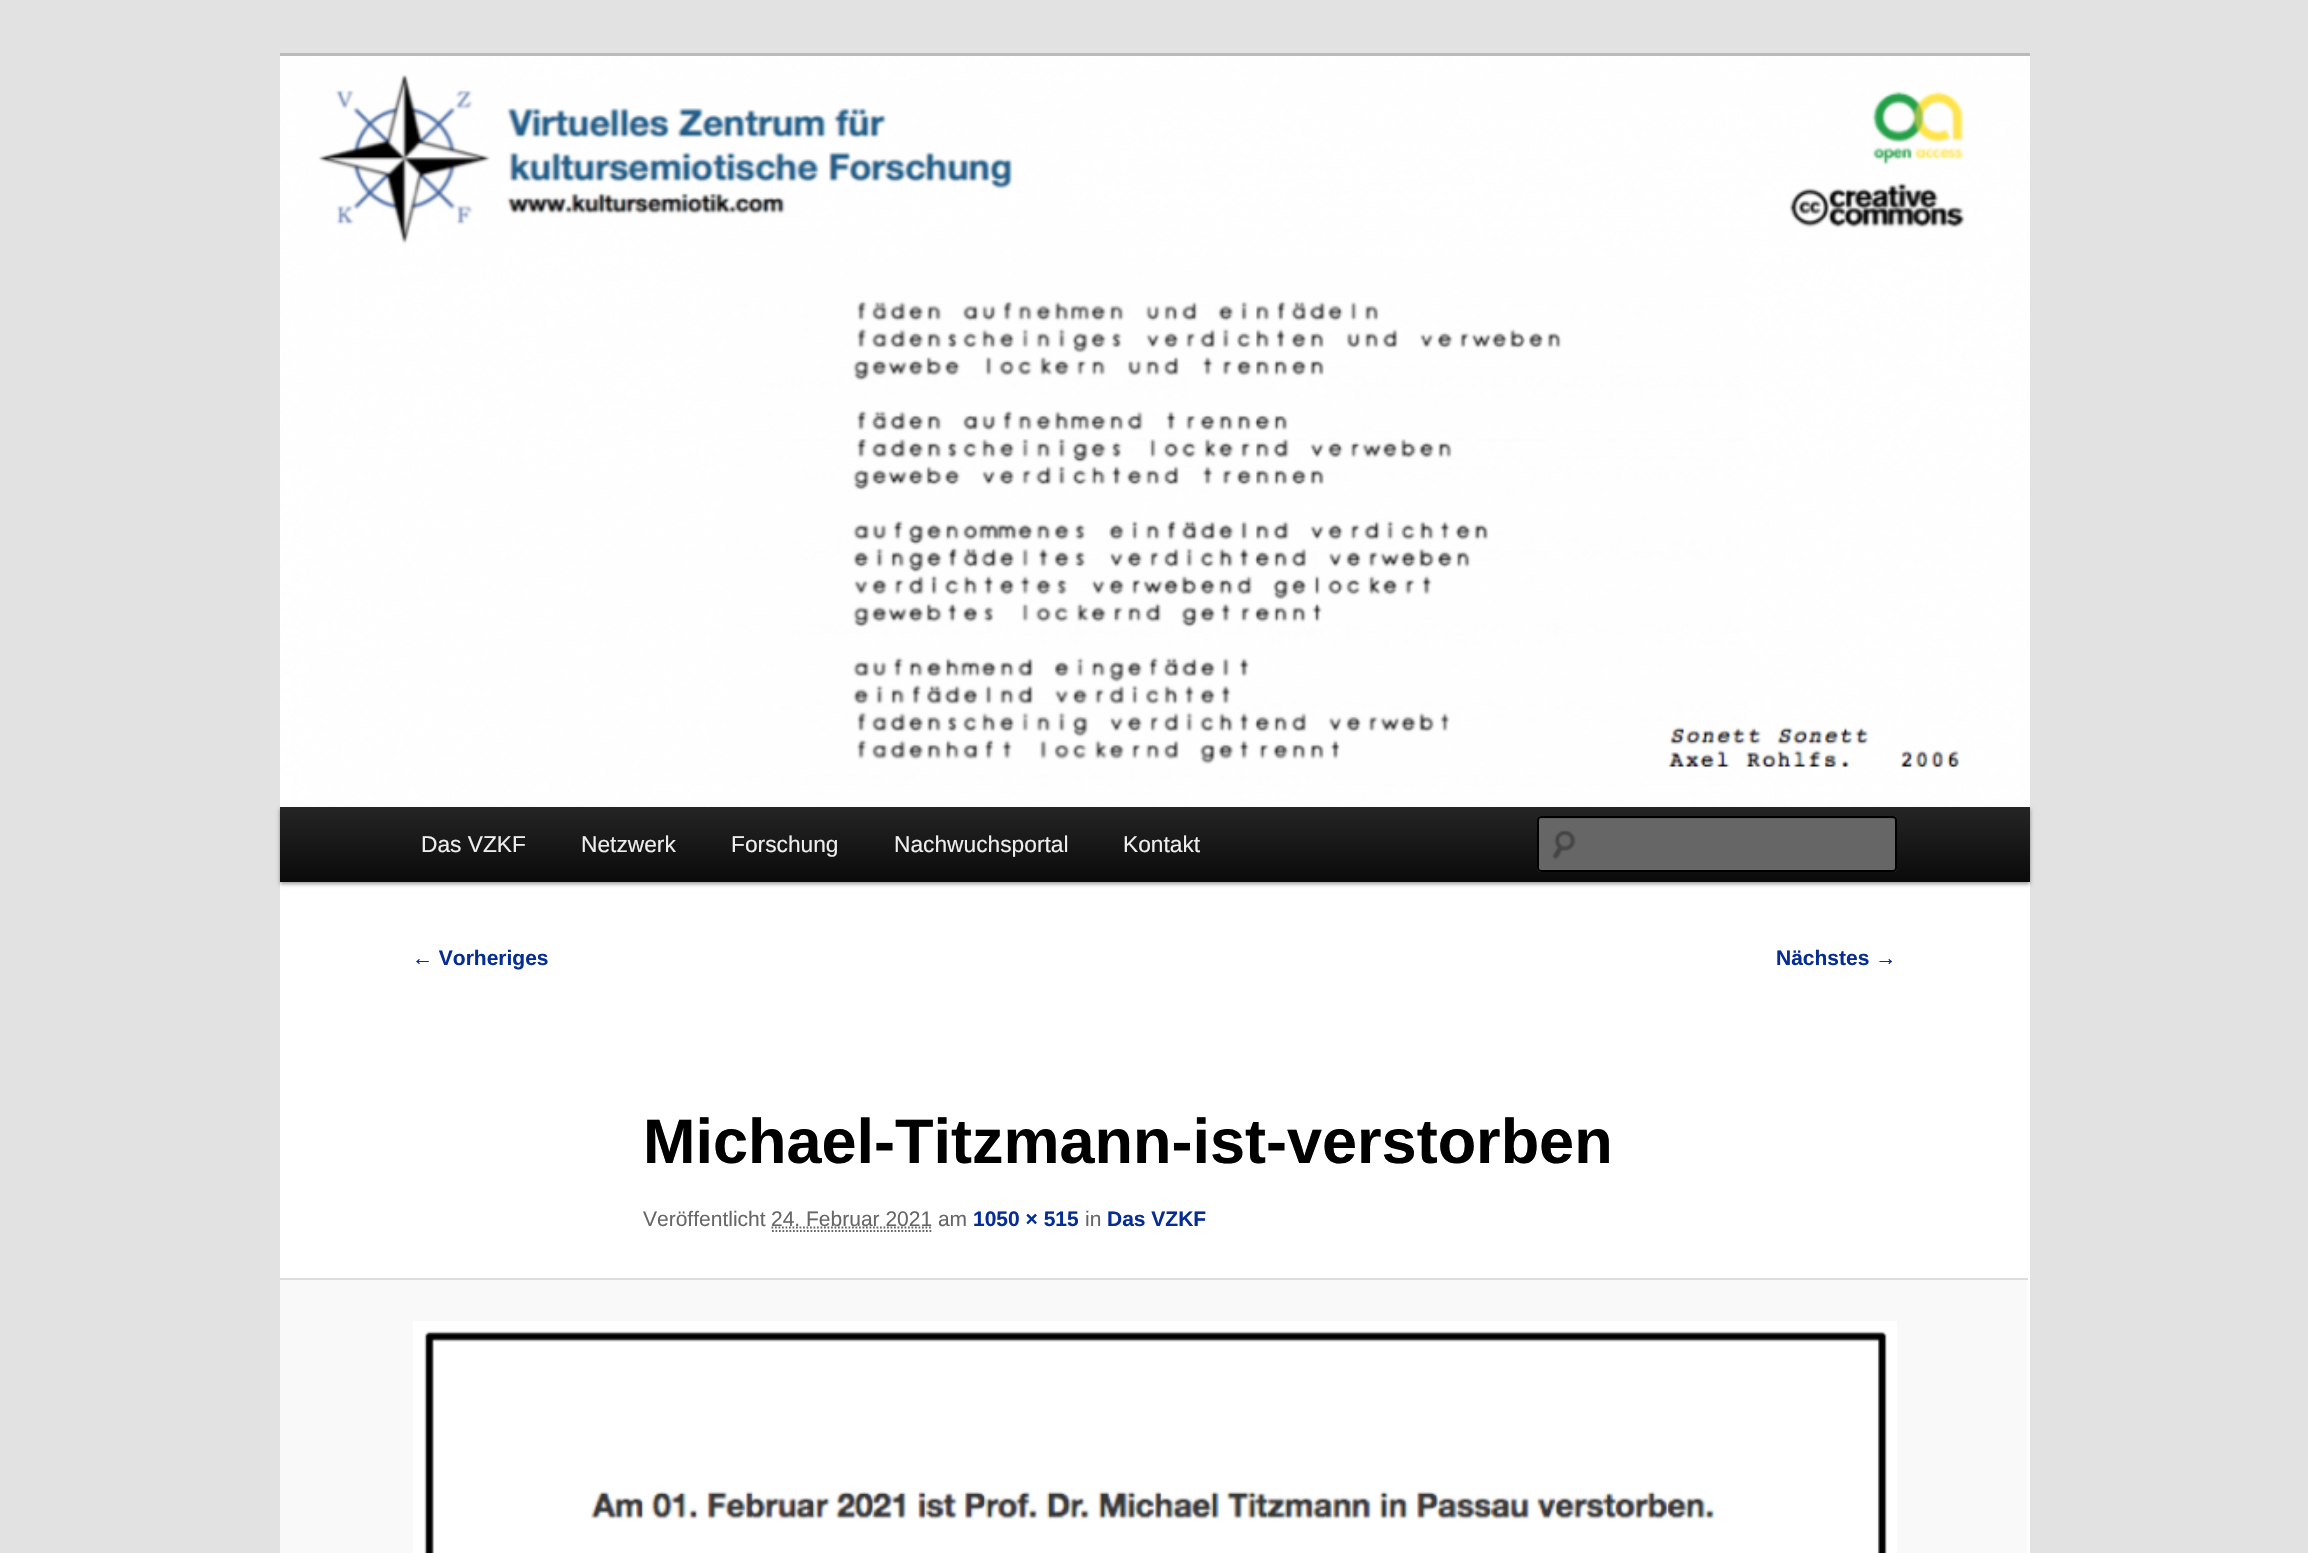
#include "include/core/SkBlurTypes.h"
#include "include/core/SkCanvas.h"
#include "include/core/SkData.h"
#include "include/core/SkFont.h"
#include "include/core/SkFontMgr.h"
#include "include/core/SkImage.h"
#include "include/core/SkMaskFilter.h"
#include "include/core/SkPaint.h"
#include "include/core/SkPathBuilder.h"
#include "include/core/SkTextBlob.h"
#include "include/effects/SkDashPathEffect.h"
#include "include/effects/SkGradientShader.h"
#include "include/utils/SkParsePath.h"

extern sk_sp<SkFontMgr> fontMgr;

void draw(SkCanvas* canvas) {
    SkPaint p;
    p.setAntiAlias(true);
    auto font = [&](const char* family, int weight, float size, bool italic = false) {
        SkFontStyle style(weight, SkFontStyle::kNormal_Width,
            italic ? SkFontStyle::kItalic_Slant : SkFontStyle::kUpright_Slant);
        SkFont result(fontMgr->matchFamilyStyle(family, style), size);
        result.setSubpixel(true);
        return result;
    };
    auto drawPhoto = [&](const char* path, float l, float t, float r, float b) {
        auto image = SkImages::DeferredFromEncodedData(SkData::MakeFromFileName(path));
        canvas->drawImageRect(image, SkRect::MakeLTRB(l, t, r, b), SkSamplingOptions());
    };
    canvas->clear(0xFFE2E2E2);
    p.setColor(0xFFFFFFFF);
    canvas->drawRect(SkRect::MakeLTRB(280, 806, 2030, 1553), p);
    p.setColor(0xFFBBBBBB);
    canvas->drawRect(SkRect::MakeLTRB(280, 53, 2030, 56), p);
    p.setColor(0x66000000);
    p.setMaskFilter(SkMaskFilter::MakeBlur(kNormal_SkBlurStyle, 2));
    canvas->drawRect(SkRect::MakeLTRB(280, 809, 2030, 884), p);
    p.setMaskFilter(nullptr);
    drawPhoto("media/1.png", 280, 56, 2030, 807);
    {
        const SkColor colors[] = {0xFF252525, 0xFF0A0A0A};
        const float stops[] = {0, 1};
        const SkPoint ends[] = {{1155, 807}, {1155, 882}};
        p.setShader(SkGradientShader::MakeLinear(ends, colors, stops, 2, SkTileMode::kClamp));
        p.setAlpha(255);
    }
    canvas->drawRect(SkRect::MakeLTRB(280, 807, 2030, 882), p);
    auto font1 = font("Liberation Sans", 400, 22.75f);
    p.setShader(nullptr);
    p.setColor(0xFFEEEEEE);
    {
        const struct { const char* s; float x, y; } items[] = {
            {"Das VZKF", 421, 852},
            {"Netzwerk", 581, 852},
            {"Forschung", 731, 852},
            {"Nachwuchsportal", 894, 852},
            {"Kontakt", 1123, 852},
        };
        for (auto [s, x, y] : items) {
            canvas->drawString(s, x, y, font1, p);
        }
    }
    p.setColor(0xFF666666);
    canvas->drawRoundRect(SkRect::MakeLTRB(1537, 816, 1897, 872), 4, 4, p);
    drawPhoto("media/2.png", 1552, 830, 1576, 860);
    p.setColor(0xFF5C5C5C);
    canvas->drawPath(SkPathBuilder().moveTo(1540, 819).lineTo(1894, 819).lineTo(1895, 821).lineTo(1895, 819).cubicTo(1895, 818, 1894, 817, 1893, 817).lineTo(1540, 817).cubicTo(1539, 817, 1538, 818, 1538, 819).lineTo(1538, 821).cubicTo(1538, 820, 1539, 819, 1540, 819).close().detach(), p);
    p.setStyle(SkPaint::kStroke_Style);
    p.setStrokeWidth(2);
    p.setColor(0xFF000000);
    canvas->drawRoundRect(SkRect::MakeLTRB(1538, 817, 1896, 871), 3, 3, p);
    auto font2 = font("Liberation Sans", 700, 21);
    p.setStyle(SkPaint::kFill_Style);
    p.setColor(0xFF062C96);
    canvas->drawString("← Vorheriges", 412, 965, font2, p);
    canvas->drawString("Nächstes →", 1776, 965, font2, p);
    auto font3 = font("Liberation Sans", 700, 63);
    p.setColor(0xFF000000);
    canvas->drawString("Michael-Titzmann-ist-verstorben", 643, 1163, font3, p);
    auto font4 = font("Liberation Sans", 400, 21);
    p.setColor(0xFF666666);
    canvas->drawString("Veröffentlicht", 643, 1226, font4, p);
    p.setStyle(SkPaint::kStroke_Style);
    p.setStrokeWidth(1.8f);
    p.setPathEffect(SkDashPathEffect::Make({{1.75f, 1.75f}}, 0));
    canvas->drawPath(SkPathBuilder().moveTo(771.5f, 1227.5f).lineTo(932.5f, 1227.5f).detach(), p);
    p.setPathEffect(nullptr);
    p.setStyle(SkPaint::kFill_Style);
    canvas->drawString("24. Februar 2021 am", 771, 1226, font4, p);
    p.setStyle(SkPaint::kStroke_Style);
    p.setPathEffect(SkDashPathEffect::Make({{1.75f, 1.75f}}, 0));
    canvas->drawPath(SkPathBuilder().moveTo(772, 1231).lineTo(933, 1231).detach(), p);
    p.setPathEffect(nullptr);
    p.setStyle(SkPaint::kFill_Style);
    p.setColor(0xFF062C96);
    canvas->drawString("1050 × 515", 973, 1226, font2, p);
    p.setColor(0xFF666666);
    canvas->drawString("in", 1085, 1226, font4, p);
    p.setColor(0xFF062C96);
    canvas->drawString("Das VZKF", 1107, 1226, font2, p);
    p.setColor(0xFFF9F9F9);
    canvas->drawRect(SkRect::MakeLTRB(280, 1280, 2028, 1553), p);
    p.setColor(0xFFDDDDDD);
    canvas->drawRect(SkRect::MakeLTRB(280, 1278, 2028, 1280), p);
    drawPhoto("media/3.png", 413, 1321, 1897, 1553);
}
